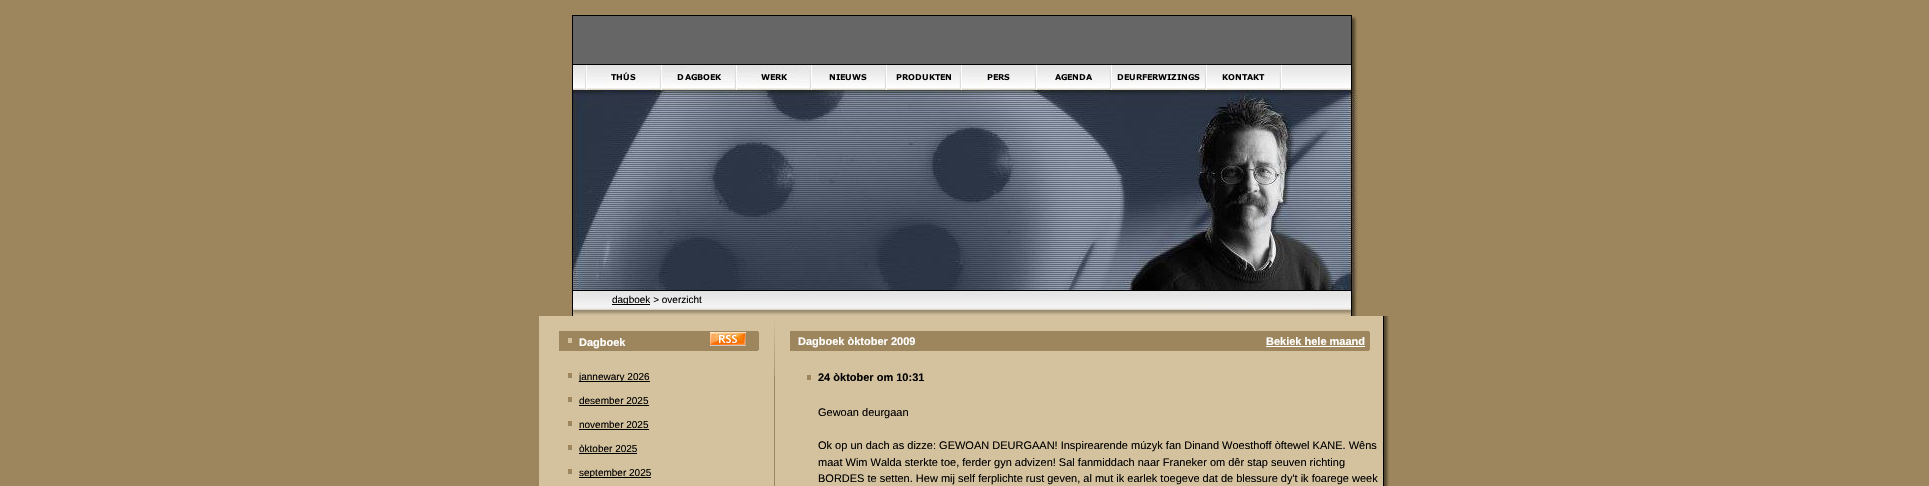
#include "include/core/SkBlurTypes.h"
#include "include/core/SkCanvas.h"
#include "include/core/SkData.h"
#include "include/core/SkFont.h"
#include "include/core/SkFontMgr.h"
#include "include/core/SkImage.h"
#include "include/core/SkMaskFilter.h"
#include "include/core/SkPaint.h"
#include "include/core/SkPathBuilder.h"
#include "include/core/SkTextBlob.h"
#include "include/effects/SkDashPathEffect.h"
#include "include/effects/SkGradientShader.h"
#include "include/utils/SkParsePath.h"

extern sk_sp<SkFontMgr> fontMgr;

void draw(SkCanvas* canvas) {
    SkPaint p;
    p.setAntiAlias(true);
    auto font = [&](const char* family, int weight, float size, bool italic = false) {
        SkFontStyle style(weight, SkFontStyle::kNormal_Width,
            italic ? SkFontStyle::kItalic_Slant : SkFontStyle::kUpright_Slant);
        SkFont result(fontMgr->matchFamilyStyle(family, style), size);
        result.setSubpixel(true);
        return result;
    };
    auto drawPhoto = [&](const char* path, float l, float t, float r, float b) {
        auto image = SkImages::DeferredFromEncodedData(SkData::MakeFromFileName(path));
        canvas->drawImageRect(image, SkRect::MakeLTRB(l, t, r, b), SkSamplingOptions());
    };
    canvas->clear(0xFF9D865D);
    drawPhoto("media/1.png", 572, 15, 1357, 65);
    drawPhoto("media/2.png", 572, 65, 587, 90);
    drawPhoto("media/3.png", 587, 65, 662, 90);
    drawPhoto("media/4.png", 662, 65, 737, 90);
    drawPhoto("media/5.png", 737, 65, 812, 90);
    drawPhoto("media/6.png", 812, 65, 887, 90);
    drawPhoto("media/7.png", 887, 65, 962, 90);
    drawPhoto("media/8.png", 962, 65, 1037, 90);
    drawPhoto("media/9.png", 1037, 65, 1112, 90);
    drawPhoto("media/10.png", 1112, 65, 1207, 90);
    drawPhoto("media/11.png", 1207, 65, 1282, 90);
    drawPhoto("media/12.png", 1282, 65, 1349, 90);
    drawPhoto("media/13.png", 1349, 65, 1357, 90);
    drawPhoto("media/14.png", 572, 90, 1358, 290);
    drawPhoto("media/15.png", 572, 290, 1357, 291);
    drawPhoto("media/16.png", 584, 291, 1351, 307);
    drawPhoto("media/17.png", 572, 291, 584, 307);
    p.setColor(0xFF000000);
    canvas->drawRect(SkRect::MakeLTRB(612, 304, 650, 305), p);
    auto font1 = font("Liberation Sans", 400, 10);
    canvas->drawString("dagboek > overzicht", 612, 303, font1, p);
    drawPhoto("media/18.png", 1351, 291, 1358, 307);
    drawPhoto("media/19.png", 572, 307, 1357, 316);
    p.setColor(0xFFD4C29F);
    canvas->drawRect(SkRect::MakeLTRB(539, 316, 1378, 486), p);
    drawPhoto("media/20.png", 1378, 316, 1389, 486);
    p.setColor(0xFF9D865D);
    canvas->drawRect(SkRect::MakeLTRB(559, 331, 757, 351), p);
    p.setColor(0xFFD4C29F);
    canvas->drawRect(SkRect::MakeLTRB(568, 338, 572, 343), p);
    drawPhoto("media/21.png", 757, 331, 759, 351);
    auto font2 = font("Liberation Sans", 700, 11);
    p.setColor(0xFFFFFFFF);
    canvas->drawString("Dagboek", 579, 346, font2, p);
    drawPhoto("media/22.png", 710, 332, 746, 346);
    p.setColor(0xFF9D865D);
    canvas->drawRect(SkRect::MakeLTRB(568, 373, 572, 378), p);
    p.setColor(0xFF000000);
    canvas->drawRect(SkRect::MakeLTRB(579, 381, 650, 382), p);
    canvas->drawString("jannewary 2026", 579, 380, font1, p);
    p.setColor(0xFF9D865D);
    canvas->drawRect(SkRect::MakeLTRB(568, 397, 572, 402), p);
    p.setColor(0xFF000000);
    canvas->drawString("desember 2025", 579, 404, font1, p);
    canvas->drawRect(SkRect::MakeLTRB(579, 405, 649, 406), p);
    p.setColor(0xFF9D865D);
    canvas->drawRect(SkRect::MakeLTRB(568, 421, 572, 426), p);
    p.setColor(0xFF000000);
    canvas->drawString("november 2025", 579, 428, font1, p);
    canvas->drawRect(SkRect::MakeLTRB(579, 429, 649, 430), p);
    p.setColor(0xFF9D865D);
    canvas->drawRect(SkRect::MakeLTRB(568, 445, 572, 450), p);
    p.setColor(0xFF000000);
    canvas->drawString("òktober 2025", 579, 452, font1, p);
    {
        const struct { float l, t, r, b; SkColor color; } items[] = {
            {579, 453, 637, 454, 0xFF000000},
            {568, 469, 572, 474, 0xFF9D865D},
            {579, 477, 651, 478, 0xFF000000},
        };
        for (auto [l, t, r, b, color] : items) {
            p.setColor(color);
            canvas->drawRect(SkRect::MakeLTRB(l, t, r, b), p);
        }
    }
    canvas->drawString("september 2025", 579, 476, font1, p);
    p.setColor(0xFF9D865D);
    canvas->drawRect(SkRect::MakeLTRB(774, 376, 775, 486), p);
    drawPhoto("media/23.png", 774, 316, 775, 376);
    canvas->drawRect(SkRect::MakeLTRB(790, 331, 1368, 351), p);
    drawPhoto("media/21.png", 1368, 331, 1370, 351);
    p.setColor(0xFFFFFFFF);
    canvas->drawString("Dagboek òktober 2009", 798, 345, font2, p);
    canvas->drawString("Bekiek hele maand", 1266, 345, font2, p);
    canvas->drawRect(SkRect::MakeLTRB(1266, 346, 1365, 347), p);
    p.setColor(0xFF9D865D);
    canvas->drawRect(SkRect::MakeLTRB(807, 375, 811, 380), p);
    p.setColor(0xFF000000);
    canvas->drawString("24 òktober om 10:31", 818, 381, font2, p);
    auto font3 = font("Liberation Sans", 400, 11);
    {
        const struct { const char* s; float x, y; } items[] = {
            {"Gewoan deurgaan", 818, 416},
            {"Ok op un dach as dizze: GEWOAN DEURGAAN! Inspirearende múzyk fan Dinand Woesthoff òftewel KANE. Wêns", 818, 449},
            {"maat Wim Walda sterkte toe, ferder gyn advizen! Sal fanmiddach naar Franeker om dêr stap seuven richting", 818, 466},
            {"BORDES te setten. Hew mij self ferplichte rust geven, al mut ik earlek toegeve dat de blessure dy't ik foarege week", 818, 482},
        };
        for (auto [s, x, y] : items) {
            canvas->drawString(s, x, y, font3, p);
        }
    }
}
